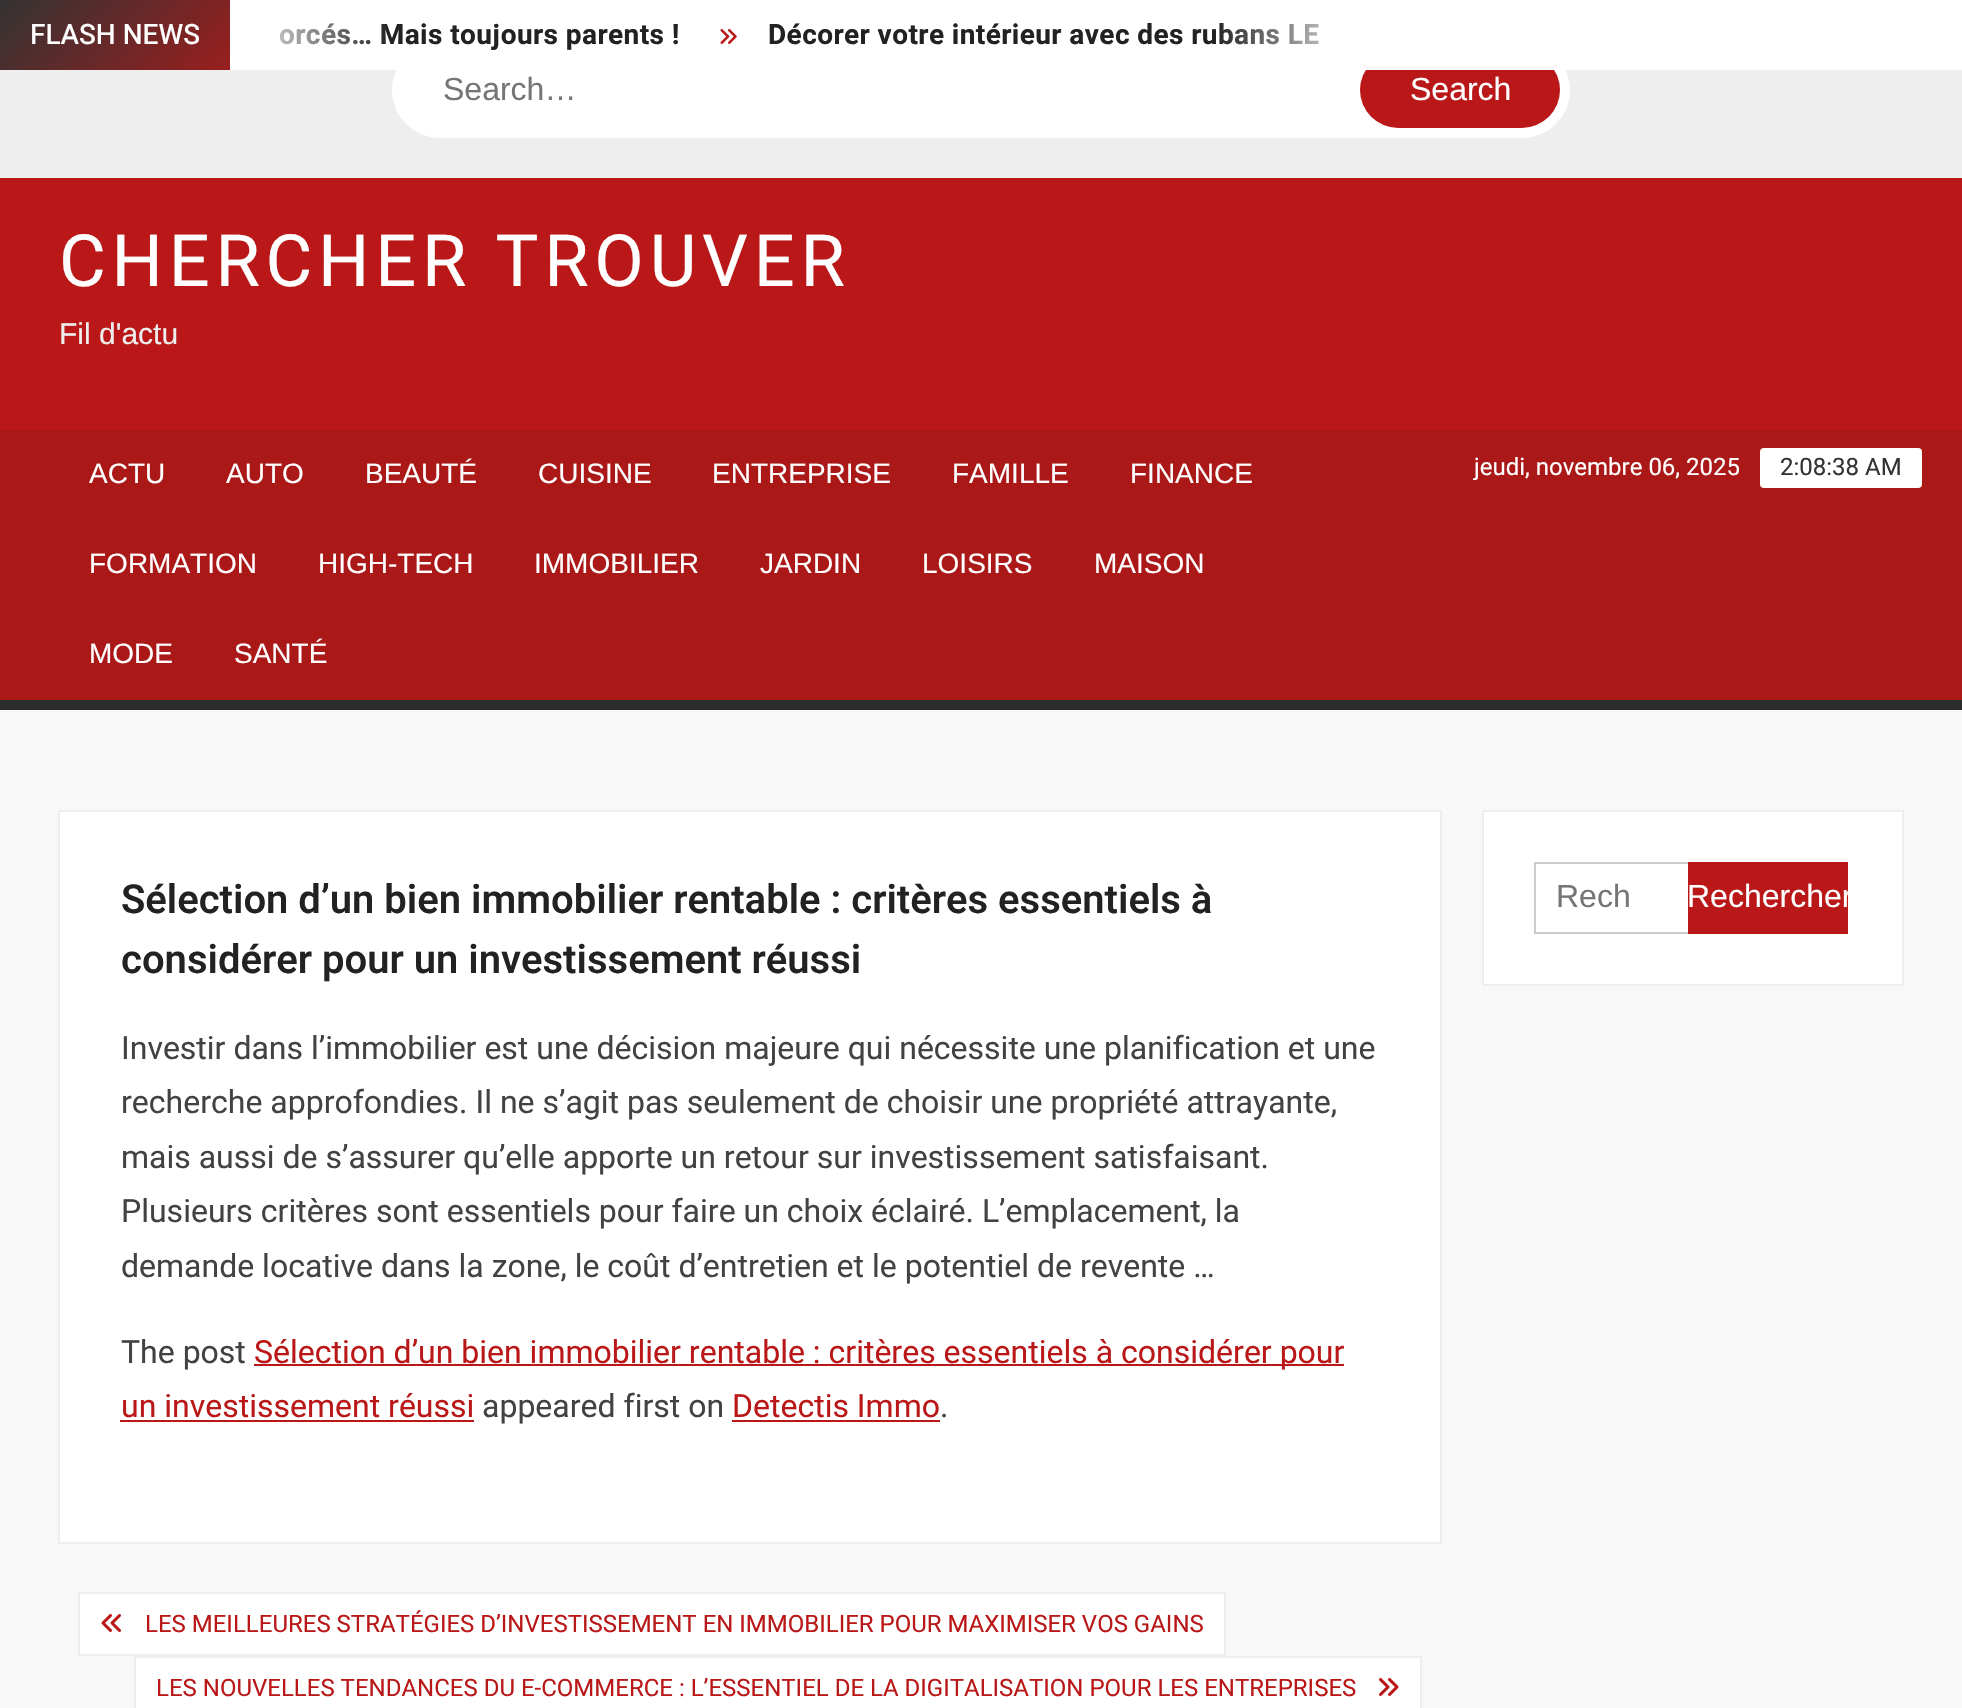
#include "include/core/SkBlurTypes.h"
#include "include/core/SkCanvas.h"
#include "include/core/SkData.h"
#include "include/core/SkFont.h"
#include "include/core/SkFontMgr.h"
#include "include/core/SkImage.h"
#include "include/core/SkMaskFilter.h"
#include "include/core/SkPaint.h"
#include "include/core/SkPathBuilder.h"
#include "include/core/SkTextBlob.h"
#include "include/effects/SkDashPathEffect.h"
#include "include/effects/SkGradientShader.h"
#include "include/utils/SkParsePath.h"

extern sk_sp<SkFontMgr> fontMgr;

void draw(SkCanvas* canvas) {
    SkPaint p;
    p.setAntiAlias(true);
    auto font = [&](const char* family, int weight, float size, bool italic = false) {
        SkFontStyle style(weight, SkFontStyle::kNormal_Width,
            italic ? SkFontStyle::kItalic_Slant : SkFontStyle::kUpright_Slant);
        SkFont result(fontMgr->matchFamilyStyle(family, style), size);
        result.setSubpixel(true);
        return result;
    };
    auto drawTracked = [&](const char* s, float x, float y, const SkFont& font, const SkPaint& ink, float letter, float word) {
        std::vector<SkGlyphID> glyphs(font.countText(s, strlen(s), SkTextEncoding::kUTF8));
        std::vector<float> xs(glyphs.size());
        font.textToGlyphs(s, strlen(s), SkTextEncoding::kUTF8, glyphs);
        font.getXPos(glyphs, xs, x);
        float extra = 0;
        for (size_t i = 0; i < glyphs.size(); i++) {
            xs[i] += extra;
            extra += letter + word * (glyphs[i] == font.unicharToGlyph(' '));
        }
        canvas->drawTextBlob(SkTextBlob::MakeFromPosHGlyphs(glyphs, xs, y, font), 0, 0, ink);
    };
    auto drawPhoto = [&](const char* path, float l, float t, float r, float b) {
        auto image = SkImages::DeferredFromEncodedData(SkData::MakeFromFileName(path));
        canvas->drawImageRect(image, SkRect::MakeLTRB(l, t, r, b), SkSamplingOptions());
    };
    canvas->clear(0xFFF8F8F8);
    p.setColor(0xFFEEEEEE);
    canvas->drawRect(SkRect::MakeLTRB(0, 70, 1962, 178), p);
    p.setColor(0xFFFFFFFF);
    canvas->drawRoundRect(SkRect::MakeLTRB(392, 42, 1570, 138), 48, 48, p);
    p.setColor(0xFFBA1818);
    canvas->drawRoundRect(SkRect::MakeLTRB(1360, 52, 1560, 128), 38, 38, p);
    p.setColor(0xFFFFFFFF);
    canvas->drawRect(SkRect::MakeLTRB(231, 0, 1962, 70), p);
    {
        const SkColor colors[] = {0xFFBA1818, 0xFFEEEEEE, 0xFFBA1818, 0xFF333333};
        const float stops[] = {0, 0.33f, 0.67f, 1};
        const SkPoint ends[] = {{760, 440}, {160, -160}};
        p.setShader(SkGradientShader::MakeLinear(ends, colors, stops, 4, SkTileMode::kClamp));
        p.setAlpha(255);
    }
    canvas->drawRect(SkRect::MakeLTRB(0, 0, 230, 70), p);
    auto font1 = font("Heebo", 500, 28);
    p.setShader(nullptr);
    p.setColor(0xFFFFFFFF);
    canvas->drawString("FLASH NEWS", 30, 44, font1, p);
    auto font2 = font("Heebo", 700, 28);
    p.setColor(0xFF222222);
    drawTracked("orcés… Mais toujours parents !", 279, 44, font2, p, 0.4f, 0);
    {
        const SkColor colors[] = {0xFFFFFFFF, 0x00FFFFFF};
        const float stops[] = {0, 1};
        const SkPoint ends[] = {{230, 35}, {390, 35}};
        p.setShader(SkGradientShader::MakeLinear(ends, colors, stops, 2, SkTileMode::kClamp));
        p.setAlpha(255);
    }
    canvas->drawRect(SkRect::MakeLTRB(230, 0, 387, 70), p);
    drawPhoto("media/1.png", 720, 29, 737, 44);
    p.setShader(nullptr);
    p.setColor(0xFF222222);
    drawTracked("Décorer votre intérieur avec des rubans LE", 768, 44, font2, p, 0.4f, 0);
    {
        const SkColor colors[] = {0x00FFFFFF, 0xFFFFFFFF};
        const float stops[] = {0, 1};
        const SkPoint ends[] = {{1214, 35}, {1374, 35}};
        p.setShader(SkGradientShader::MakeLinear(ends, colors, stops, 2, SkTileMode::kClamp));
        p.setAlpha(255);
    }
    canvas->drawRect(SkRect::MakeLTRB(1219, 23, 1319, 45), p);
    auto font3 = font("Liberation Sans", 400, 32);
    p.setShader(nullptr);
    p.setColor(0xFF757575);
    canvas->drawString("Search…", 443, 100, font3, p);
    p.setColor(0xFFFFFFFF);
    canvas->drawString("Search", 1410, 100, font3, p);
    p.setColor(0xFFBA1818);
    canvas->drawRect(SkRect::MakeLTRB(0, 178, 1962, 430), p);
    auto font4 = font("Heebo", 400, 72);
    p.setColor(0xFFFFFFFF);
    drawTracked("CHERCHER TROUVER", 59, 286, font4, p, 5.75f, 0);
    auto font5 = font("Liberation Sans", 400, 30);
    p.setColor(0xFFEEEEEE);
    canvas->drawString("Fil d'actu", 59, 344, font5, p);
    p.setColor(0xFFAA1818);
    canvas->drawRect(SkRect::MakeLTRB(0, 430, 1962, 700), p);
    p.setColor(0xFF2C2C2C);
    canvas->drawRect(SkRect::MakeLTRB(0, 700, 1962, 710), p);
    auto font6 = font("Liberation Sans", 400, 28);
    p.setColor(0xFFFFFFFF);
    {
        const struct { const char* s; float x, y; } items[] = {
            {"ACTU", 89, 483},
            {"AUTO", 226, 483},
            {"BEAUTÉ", 365, 483},
            {"CUISINE", 538, 483},
            {"ENTREPRISE", 712, 483},
            {"FAMILLE", 952, 483},
            {"FINANCE", 1130, 483},
            {"FORMATION", 89, 573},
            {"HIGH-TECH", 318, 573},
            {"IMMOBILIER", 534, 573},
            {"JARDIN", 760, 573},
            {"LOISIRS", 922, 573},
            {"MAISON", 1094, 573},
            {"MODE", 89, 663},
            {"SANTÉ", 234, 663},
        };
        for (auto [s, x, y] : items) {
            canvas->drawString(s, x, y, font6, p);
        }
    }
    auto font7 = font("Roboto", 400, 24);
    canvas->drawString("jeudi, novembre 06, 2025", 1474, 475, font7, p);
    canvas->drawRoundRect(SkRect::MakeLTRB(1760, 448, 1922, 488), 4, 4, p);
    p.setColor(0xFF333333);
    canvas->drawString("2:08:38 AM", 1780, 475, font7, p);
    p.setColor(0xFFFFFFFF);
    canvas->drawRect(SkRect::MakeLTRB(59, 811, 1441, 1543), p);
    p.setStyle(SkPaint::kStroke_Style);
    p.setStrokeWidth(2);
    p.setColor(0xFFEEEEEE);
    canvas->drawRect(SkRect::MakeLTRB(59, 811, 1441, 1543), p);
    auto font8 = font("Heebo", 600, 40);
    p.setStyle(SkPaint::kFill_Style);
    p.setColor(0xFF222222);
    canvas->drawString("Sélection d’un bien immobilier rentable : critères essentiels à", 121, 913, font8, p);
    canvas->drawString("considérer pour un investissement réussi", 121, 973, font8, p);
    auto font9 = font("Roboto", 400, 32);
    p.setColor(0xFF424242);
    {
        const struct { const char* s; float x, y; } items[] = {
            {"Investir dans l’immobilier est une décision majeure qui nécessite une planification et une", 121, 1059},
            {"recherche approfondies. Il ne s’agit pas seulement de choisir une propriété attrayante,", 121, 1113},
            {"mais aussi de s’assurer qu’elle apporte un retour sur investissement satisfaisant.", 121, 1168},
            {"Plusieurs critères sont essentiels pour faire un choix éclairé. L’emplacement, la", 121, 1222},
            {"demande locative dans la zone, le coût d’entretien et le potentiel de revente …", 121, 1277},
            {"The post", 121, 1363},
        };
        for (auto [s, x, y] : items) {
            canvas->drawString(s, x, y, font9, p);
        }
    }
    p.setColor(0xFFBA1818);
    canvas->drawRect(SkRect::MakeLTRB(254, 1364, 1344, 1366), p);
    canvas->drawString("Sélection d’un bien immobilier rentable : critères essentiels à considérer pour", 254, 1363, font9, p);
    canvas->drawString("un investissement réussi", 121, 1417, font9, p);
    canvas->drawRect(SkRect::MakeLTRB(120, 1420, 474, 1422), p);
    p.setColor(0xFF424242);
    canvas->drawString("appeared first on", 482, 1417, font9, p);
    p.setColor(0xFFBA1818);
    canvas->drawString("Detectis Immo", 732, 1417, font9, p);
    canvas->drawRect(SkRect::MakeLTRB(732, 1420, 940, 1422), p);
    p.setColor(0xFF424242);
    canvas->drawString(".", 940, 1417, font9, p);
    p.setColor(0xFFFFFFFF);
    canvas->drawRect(SkRect::MakeLTRB(79, 1593, 1225, 1655), p);
    p.setStyle(SkPaint::kStroke_Style);
    p.setColor(0xFFEEEEEE);
    canvas->drawRect(SkRect::MakeLTRB(79, 1593, 1225, 1655), p);
    drawPhoto("media/2.png", 101, 1614, 121, 1632);
    p.setStyle(SkPaint::kFill_Style);
    p.setColor(0xFFBA1818);
    canvas->drawString("LES MEILLEURES STRATÉGIES D’INVESTISSEMENT EN IMMOBILIER POUR MAXIMISER VOS GAINS", 145, 1632, font7, p);
    p.setColor(0xFFFFFFFF);
    canvas->drawRect(SkRect::MakeLTRB(135, 1657, 1421, 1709), p);
    p.setStyle(SkPaint::kStroke_Style);
    p.setColor(0xFFEEEEEE);
    canvas->drawRect(SkRect::MakeLTRB(135, 1657, 1421, 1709), p);
    p.setStyle(SkPaint::kFill_Style);
    p.setColor(0xFFBA1818);
    canvas->drawString("LES NOUVELLES TENDANCES DU E-COMMERCE : L’ESSENTIEL DE LA DIGITALISATION POUR LES ENTREPRISES", 156, 1696, font7, p);
    drawPhoto("media/3.png", 1379, 1678, 1399, 1696);
    p.setColor(0xFFFFFFFF);
    canvas->drawRect(SkRect::MakeLTRB(1483, 811, 1903, 985), p);
    p.setStyle(SkPaint::kStroke_Style);
    p.setColor(0xFFEEEEEE);
    canvas->drawRect(SkRect::MakeLTRB(1483, 811, 1903, 985), p);
    p.setColor(0xFFCCCCCC);
    canvas->drawRect(SkRect::MakeLTRB(1535, 863, 1689, 933), p);
    p.setStyle(SkPaint::kFill_Style);
    p.setColor(0xFF757575);
    canvas->drawString("Rech", 1556, 907, font3, p);
    p.setColor(0xFFBA1818);
    canvas->drawRect(SkRect::MakeLTRB(1688, 862, 1848, 934), p);
    canvas->save();
    canvas->clipRect(SkRect::MakeLTRB(1688, 862, 1848, 934));
    p.setColor(0xFFFFFFFF);
    canvas->drawString("Rechercher", 1687, 907, font3, p);
    canvas->restore();
}
